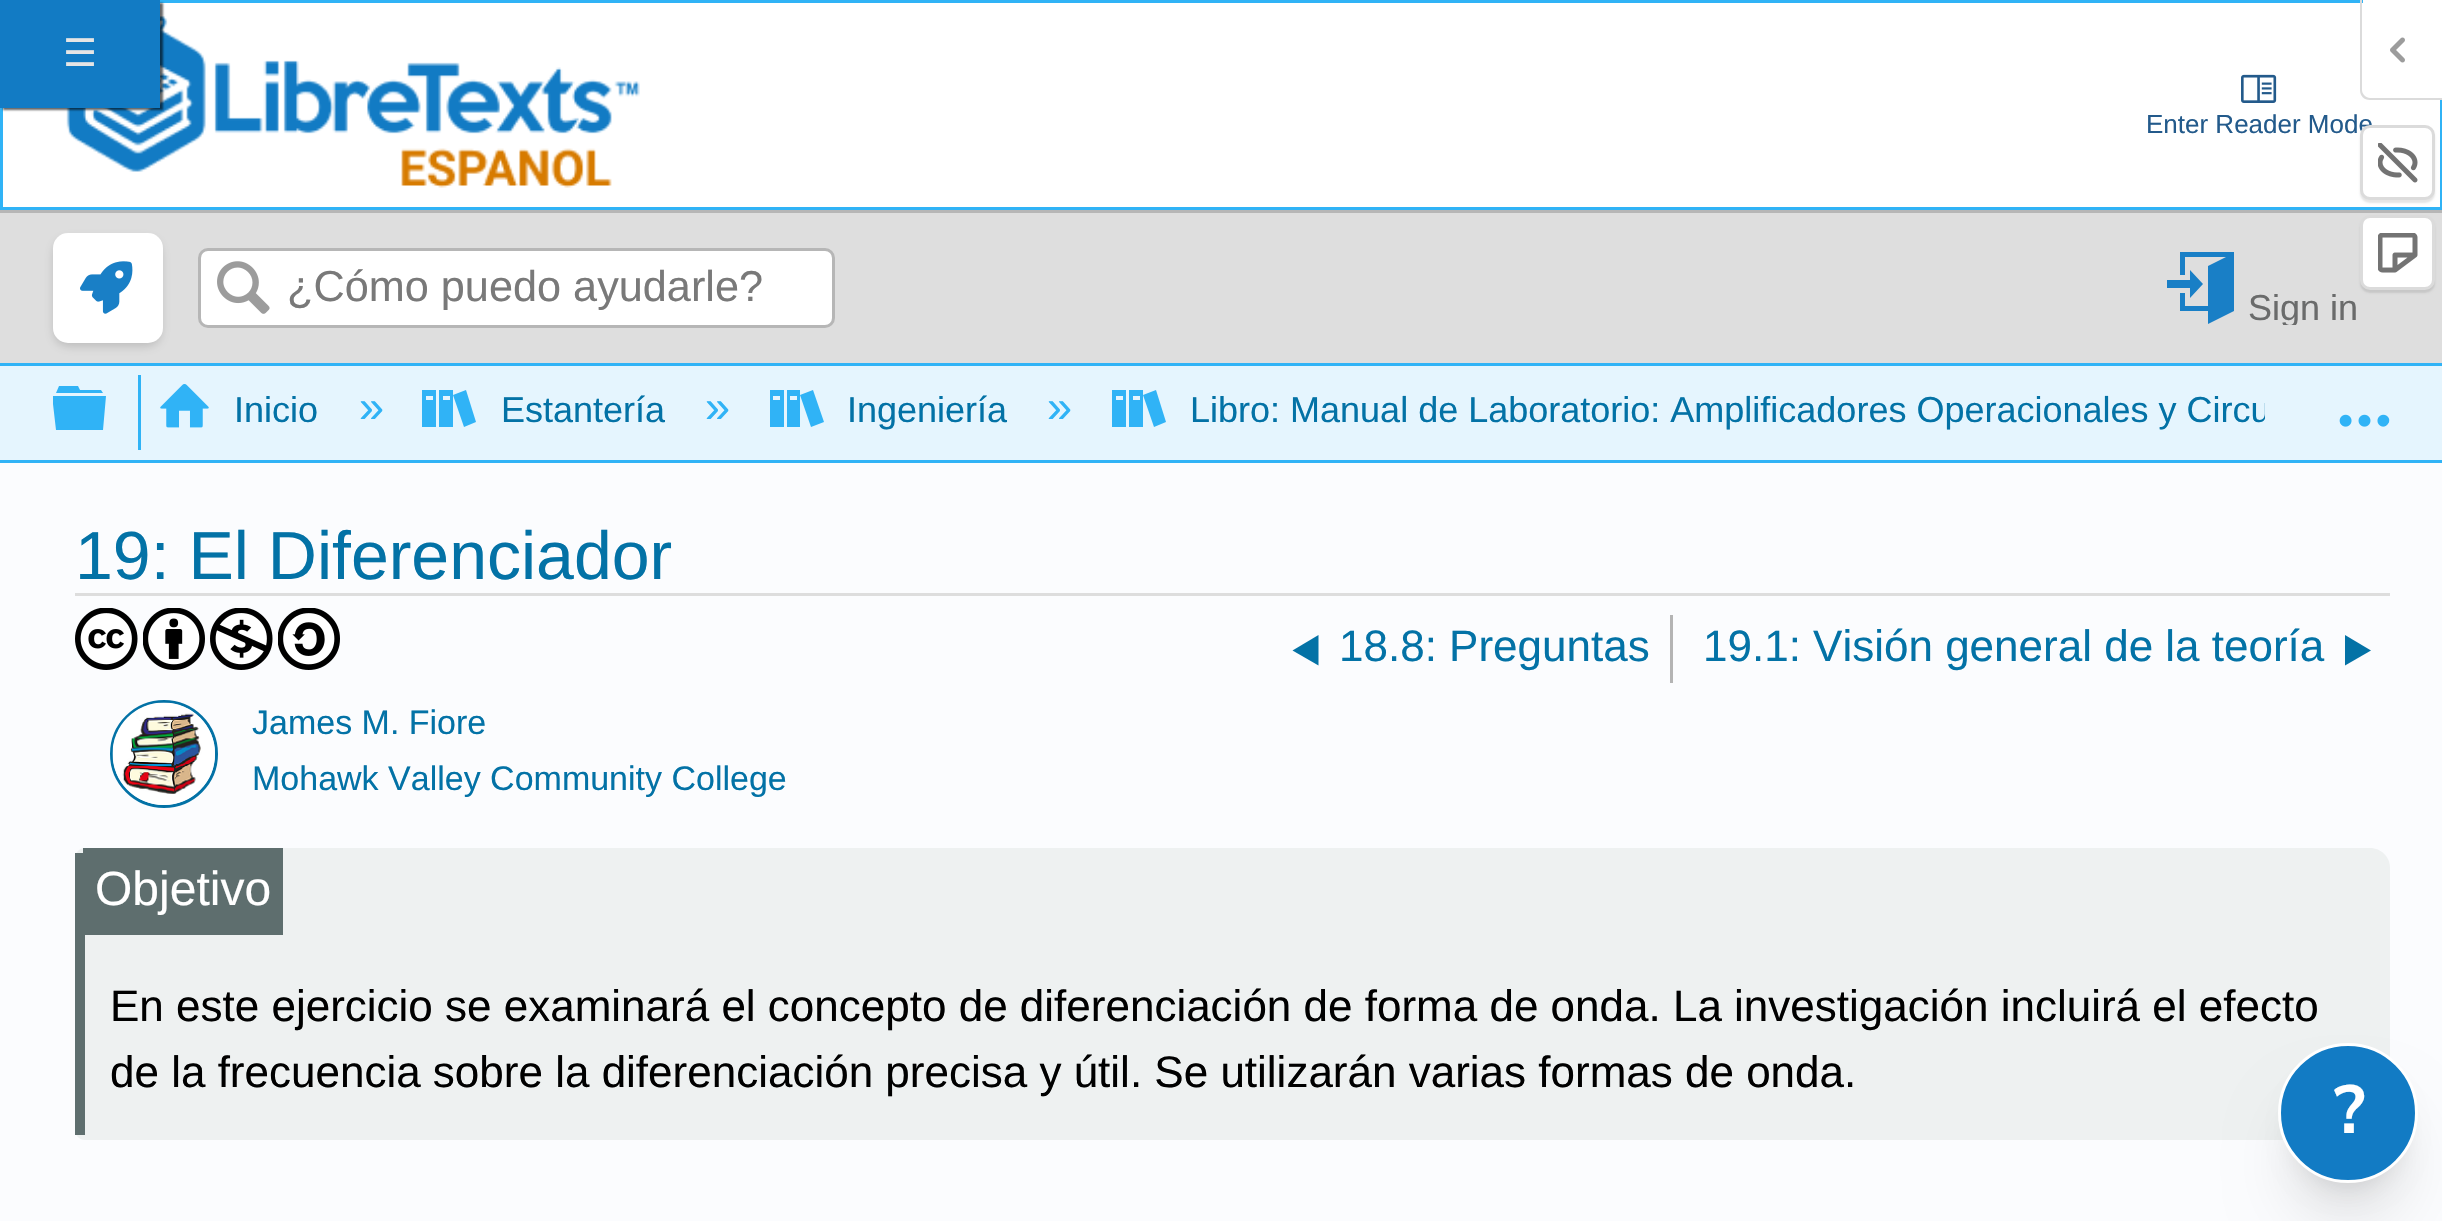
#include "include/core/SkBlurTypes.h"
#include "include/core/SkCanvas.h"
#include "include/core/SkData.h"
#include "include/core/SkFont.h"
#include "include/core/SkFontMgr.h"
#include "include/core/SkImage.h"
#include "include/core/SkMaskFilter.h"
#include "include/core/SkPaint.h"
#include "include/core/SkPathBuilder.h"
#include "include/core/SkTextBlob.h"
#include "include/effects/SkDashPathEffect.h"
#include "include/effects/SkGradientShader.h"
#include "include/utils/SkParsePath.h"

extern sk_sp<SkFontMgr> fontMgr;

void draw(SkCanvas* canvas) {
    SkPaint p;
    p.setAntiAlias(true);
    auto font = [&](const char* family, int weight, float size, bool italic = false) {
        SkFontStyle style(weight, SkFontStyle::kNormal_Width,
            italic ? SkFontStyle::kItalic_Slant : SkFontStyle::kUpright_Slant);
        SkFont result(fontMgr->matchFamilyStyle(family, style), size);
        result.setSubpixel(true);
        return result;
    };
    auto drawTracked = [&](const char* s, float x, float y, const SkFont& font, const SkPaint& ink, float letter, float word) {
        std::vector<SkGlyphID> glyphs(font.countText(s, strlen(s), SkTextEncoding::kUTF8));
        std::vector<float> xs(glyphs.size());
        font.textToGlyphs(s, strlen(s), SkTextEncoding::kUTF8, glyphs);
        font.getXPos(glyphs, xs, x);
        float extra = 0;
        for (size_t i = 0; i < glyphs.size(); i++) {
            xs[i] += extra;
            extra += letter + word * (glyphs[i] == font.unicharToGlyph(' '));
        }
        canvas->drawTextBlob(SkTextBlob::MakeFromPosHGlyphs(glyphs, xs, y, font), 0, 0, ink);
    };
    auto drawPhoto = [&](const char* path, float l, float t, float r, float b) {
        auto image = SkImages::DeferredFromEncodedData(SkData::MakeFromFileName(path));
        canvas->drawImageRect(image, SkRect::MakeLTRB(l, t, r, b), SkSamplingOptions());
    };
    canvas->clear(0xFFFBFCFE);
    p.setColor(0xFFFFFFFF);
    canvas->drawRect(SkRect::MakeLTRB(1.5f, 1.5f, 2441.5f, 208.5f), p);
    p.setStyle(SkPaint::kStroke_Style);
    p.setStrokeWidth(3);
    p.setColor(0xFF30B3F6);
    canvas->drawRect(SkRect::MakeLTRB(1.5f, 1.5f, 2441.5f, 208.5f), p);
    drawPhoto("media/4.png", 66, 16, 640, 188);
    p.setStyle(SkPaint::kFill_Style);
    p.setColor(0x99000000);
    p.setMaskFilter(SkMaskFilter::MakeBlur(kNormal_SkBlurStyle, 1));
    canvas->drawRect(SkRect::MakeLTRB(3, 3, 163, 110), p);
    p.setMaskFilter(nullptr);
    p.setColor(0xFF127BC4);
    canvas->drawRect(SkRect::MakeLTRB(0, 0, 160, 108), p);
    auto font1 = font("DejaVu Sans", 400, 38);
    p.setColor(0xFFE5E5E5);
    drawTracked("☰", 63, 66, font1, p, 1, 0);
    p.setColor(0xFFFFFFFF);
    canvas->drawPath(SkPathBuilder().moveTo(2363, 0).lineTo(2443, 0).lineTo(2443, 98).lineTo(2371, 98).cubicTo(2366.5f, 98, 2363, 94.5f, 2363, 90).close().detach(), p);
    p.setColor(0xFFDBDBDB);
    canvas->drawPath(SkPathBuilder(SkPathFillType::kEvenOdd).moveTo(2360, 0).lineTo(2442, 0).lineTo(2442, 100).lineTo(2370, 100).cubicTo(2364, 100, 2360, 96, 2360, 90).close().moveTo(2362, 0).lineTo(2442, 0).lineTo(2442, 98).lineTo(2370, 98).cubicTo(2366, 98, 2362, 94, 2362, 90).close().detach(), p);
    drawPhoto("media/1.png", 2390, 37, 2405, 63);
    p.setColor(0x1A000000);
    p.setMaskFilter(SkMaskFilter::MakeBlur(kNormal_SkBlurStyle, 1));
    canvas->drawRoundRect(SkRect::MakeLTRB(2360, 128, 2435, 203), 10, 10, p);
    p.setMaskFilter(nullptr);
    auto font2 = font("Liberation Sans", 400, 26);
    p.setColor(0xFF235A8B);
    canvas->drawString("Enter Reader Mode", 2146, 133, font2, p);
    p.setColor(0xFFFFFFFF);
    canvas->drawRoundRect(SkRect::MakeLTRB(2361.5f, 126.5f, 2433.5f, 198.5f), 8.5f, 8.5f, p);
    p.setStyle(SkPaint::kStroke_Style);
    p.setColor(0xFFDBDBDB);
    canvas->drawRoundRect(SkRect::MakeLTRB(2361.5f, 126.5f, 2433.5f, 198.5f), 8.5f, 8.5f, p);
    drawPhoto("media/2.png", 2378, 143, 2418, 183);
    p.setStyle(SkPaint::kFill_Style);
    p.setColor(0xFFDEDEDE);
    canvas->drawRect(SkRect::MakeLTRB(0, 213, 2442, 363), p);
    p.setColor(0x1A000000);
    p.setMaskFilter(SkMaskFilter::MakeBlur(kNormal_SkBlurStyle, 1));
    canvas->drawRoundRect(SkRect::MakeLTRB(2360, 218, 2435, 293), 10, 10, p);
    p.setMaskFilter(nullptr);
    p.setColor(0xFFFFFFFF);
    canvas->drawRoundRect(SkRect::MakeLTRB(2361.5f, 216.5f, 2433.5f, 288.5f), 8.5f, 8.5f, p);
    p.setStyle(SkPaint::kStroke_Style);
    p.setColor(0xFFDBDBDB);
    canvas->drawRoundRect(SkRect::MakeLTRB(2361.5f, 216.5f, 2433.5f, 288.5f), 8.5f, 8.5f, p);
    drawPhoto("media/3.png", 2378, 233, 2418, 273);
    drawPhoto("media/5.png", 2241, 74, 2277, 103);
    p.setStyle(SkPaint::kFill_Style);
    p.setColor(0xFFB6B6B6);
    canvas->drawRect(SkRect::MakeLTRB(0, 210, 2442, 213), p);
    p.setColor(0xFF30B3F6);
    canvas->drawRect(SkRect::MakeLTRB(0, 363, 2442, 366), p);
    p.setColor(0x33080808);
    p.setMaskFilter(SkMaskFilter::MakeBlur(kNormal_SkBlurStyle, 6));
    canvas->drawRoundRect(SkRect::MakeLTRB(55, 240, 160, 345), 13, 13, p);
    p.setMaskFilter(nullptr);
    p.setColor(0xFFFFFFFF);
    canvas->drawRoundRect(SkRect::MakeLTRB(53, 233, 163, 343), 15, 15, p);
    drawPhoto("media/6.png", 80, 261, 133, 314);
    canvas->drawRoundRect(SkRect::MakeLTRB(199.5f, 249.5f, 833.5f, 326.5f), 8.5f, 8.5f, p);
    p.setStyle(SkPaint::kStroke_Style);
    p.setColor(0xFFB6B6B6);
    canvas->drawRoundRect(SkRect::MakeLTRB(199.5f, 249.5f, 833.5f, 326.5f), 8.5f, 8.5f, p);
    drawPhoto("media/7.png", 217, 261, 270, 314);
    auto font3 = font("Liberation Sans", 400, 43.25f);
    p.setStyle(SkPaint::kFill_Style);
    p.setColor(0xFF797979);
    canvas->drawString("¿Cómo puedo ayudarle?", 287, 301, font3, p);
    p.setColor(0xFF197FC6);
    canvas->drawPath(SkPathBuilder().moveTo(2190, 288).lineTo(2167, 288).lineTo(2167, 280).lineTo(2190, 280).lineTo(2190, 270).lineTo(2203, 284).lineTo(2190, 298).close().moveTo(2234, 252).lineTo(2234, 311).lineTo(2208, 324).lineTo(2208, 311).lineTo(2180, 311).lineTo(2180, 293).lineTo(2185, 293).lineTo(2185, 306).lineTo(2208, 306).lineTo(2208, 266).lineTo(2226, 257).lineTo(2185, 257).lineTo(2185, 275).lineTo(2180, 275).lineTo(2180, 252).close().detach(), p);
    canvas->save();
    canvas->clipRect(SkRect::MakeLTRB(2163, 250, 2373, 325));
    auto font4 = font("Liberation Sans", 400, 36);
    p.setColor(0xFF6A6B6B);
    canvas->drawString("Sign in", 2248, 320, font4, p);
    canvas->restore();
    p.setColor(0xFFE5F5FE);
    canvas->drawRect(SkRect::MakeLTRB(0, 366, 2442, 460), p);
    p.setColor(0xFF30B3F6);
    canvas->drawRect(SkRect::MakeLTRB(0, 460, 2442, 463), p);
    canvas->drawPath(SkPathBuilder(SkPathFillType::kEvenOdd).moveTo(53, 404).lineTo(53, 396).lineTo(106, 396).lineTo(103, 430).lineTo(56, 430).close().moveTo(101, 390).lineTo(80, 390).lineTo(78, 386).lineTo(59, 386).lineTo(56, 393).lineTo(103, 393).close().detach(), p);
    canvas->drawRect(SkRect::MakeLTRB(138, 375, 141, 450), p);
    drawPhoto("media/8.png", 160, 384, 209, 428);
    p.setColor(0xFF0372A6);
    canvas->drawString("Inicio", 234, 422, font4, p);
    auto font5 = font("Liberation Sans", 400, 45);
    p.setColor(0xFF30B3F6);
    canvas->drawString("»", 359, 422, font5, p);
    p.setColor(0xFF0372A6);
    canvas->drawString("Estantería", 501, 422, font4, p);
    p.setColor(0xFF30B3F6);
    canvas->drawPath(SkPathBuilder().moveTo(453, 395).lineTo(466, 390).lineTo(476, 422).lineTo(464, 427).close().moveTo(422, 427).lineTo(436, 427).lineTo(436, 390).lineTo(422, 390).close().moveTo(426, 396).lineTo(433, 396).lineTo(433, 400).lineTo(426, 400).close().moveTo(439, 427).lineTo(453, 427).lineTo(453, 390).lineTo(439, 390).close().moveTo(443, 396).lineTo(450, 396).lineTo(450, 400).lineTo(443, 400).close().detach(), p);
    canvas->drawString("»", 705, 422, font5, p);
    p.setColor(0xFF0372A6);
    canvas->drawString("Ingeniería", 847, 422, font4, p);
    p.setColor(0xFF30B3F6);
    canvas->drawPath(SkPathBuilder().moveTo(800, 395).lineTo(813, 390).lineTo(824, 422).lineTo(811, 427).close().moveTo(770, 427).lineTo(784, 427).lineTo(784, 390).lineTo(770, 390).close().moveTo(773, 396).lineTo(780, 396).lineTo(780, 400).lineTo(773, 400).close().moveTo(787, 427).lineTo(800, 427).lineTo(800, 390).lineTo(787, 390).close().moveTo(790, 396).lineTo(797, 396).lineTo(797, 400).lineTo(790, 400).close().detach(), p);
    canvas->drawString("»", 1047, 422, font5, p);
    canvas->save();
    canvas->clipRect(SkRect::MakeLTRB(140, 375, 2265, 450));
    p.setColor(0xFF0372A6);
    canvas->drawString("Libro: Manual de Laboratorio: Amplificadores Operacionales y Circu", 1190, 422, font4, p);
    canvas->restore();
    p.setColor(0xFF30B3F6);
    canvas->drawPath(SkPathBuilder().moveTo(1143, 395).lineTo(1156, 390).lineTo(1166, 422).lineTo(1154, 427).close().moveTo(1112, 427).lineTo(1126, 427).lineTo(1126, 390).lineTo(1112, 390).close().moveTo(1116, 396).lineTo(1123, 396).lineTo(1123, 400).lineTo(1116, 400).close().moveTo(1129, 427).lineTo(1143, 427).lineTo(1143, 390).lineTo(1129, 390).close().moveTo(1133, 396).lineTo(1140, 396).lineTo(1140, 400).lineTo(1133, 400).close().detach(), p);
    drawPhoto("media/9.png", 2339, 414, 2390, 427);
    p.setColor(0xFFDDDDDD);
    canvas->drawRect(SkRect::MakeLTRB(75, 593, 2390, 596), p);
    auto font6 = font("Liberation Sans", 400, 68);
    p.setColor(0xFF0372A6);
    canvas->drawString("19: El Diferenciador", 75, 579, font6, p);
    drawPhoto("media/10.png", 75, 608, 138, 670);
    drawPhoto("media/11.png", 143, 608, 205, 670);
    drawPhoto("media/12.png", 210, 608, 273, 670);
    drawPhoto("media/13.png", 278, 608, 340, 670);
    p.setColor(0xFFB4B4B4);
    canvas->drawRect(SkRect::MakeLTRB(1670, 615, 1673, 683), p);
    p.setColor(0xFF0372A6);
    canvas->drawPath(SkPathBuilder().moveTo(1318.5f, 635).lineTo(1318.5f, 665.5f).lineTo(1292.5f, 650.5f).close().detach(), p);
    auto font7 = font("Liberation Sans", 400, 44);
    canvas->drawString("18.8: Preguntas", 1339, 661, font7, p);
    canvas->drawString("19.1: Visión general de la teoría", 1703, 661, font7, p);
    canvas->drawPath(SkPathBuilder().moveTo(2345, 635).lineTo(2345, 665.5f).lineTo(2371, 650.5f).close().detach(), p);
    p.setStyle(SkPaint::kStroke_Style);
    canvas->drawCircle(164, 754, 52.5f, p);
    drawPhoto("media/14.png", 112, 702, 215, 805);
    auto font8 = font("Liberation Sans", 400, 34);
    p.setStyle(SkPaint::kFill_Style);
    canvas->drawString("James M. Fiore", 252, 734, font8, p);
    canvas->drawString("Mohawk Valley Community College", 252, 790, font8, p);
    p.setColor(0xFFEEF1F1);
    canvas->drawPath(SkPathBuilder().moveTo(85, 848).lineTo(2370, 848).cubicTo(2381, 848, 2390, 857, 2390, 868).lineTo(2390, 1120).cubicTo(2390, 1131, 2381, 1140, 2370, 1140).lineTo(85, 1140).cubicTo(79.5f, 1140, 75, 1135.5f, 75, 1130).lineTo(75, 858).cubicTo(75, 852.5f, 79.5f, 848, 85, 848).close().detach(), p);
    p.setColor(0xFF5E6E6E);
    canvas->drawRect(SkRect::MakeLTRB(75, 853, 85, 1135), p);
    canvas->drawRect(SkRect::MakeLTRB(83, 848, 283, 935), p);
    auto font9 = font("Liberation Sans", 400, 48);
    p.setColor(0xFFFFFFFF);
    canvas->drawString("Objetivo", 95, 905, font9, p);
    p.setColor(0xFF000000);
    canvas->drawString("En este ejercicio se examinará el concepto de diferenciación de forma de onda. La investigación incluirá el efecto", 110, 1021, font7, p);
    canvas->drawString("de la frecuencia sobre la diferenciación precisa y útil. Se utilizarán varias formas de onda.", 110, 1087, font7, p);
    p.setColor(0x1A000000);
    p.setMaskFilter(SkMaskFilter::MakeBlur(kNormal_SkBlurStyle, 12.5f));
    canvas->drawRoundRect(SkRect::MakeLTRB(2293, 1078, 2403, 1188), 55, 55, p);
    p.setMaskFilter(nullptr);
    p.setMaskFilter(SkMaskFilter::MakeBlur(kNormal_SkBlurStyle, 31));
    canvas->drawRoundRect(SkRect::MakeLTRB(2290, 1105, 2405, 1220), 57.5f, 57.5f, p);
    p.setMaskFilter(nullptr);
    p.setColor(0xFF127BC4);
    canvas->drawCircle(2348, 1113, 68.5f, p);
    p.setStyle(SkPaint::kStroke_Style);
    p.setColor(0xFFFFFFFF);
    canvas->drawCircle(2348, 1113, 68.5f, p);
    auto font10 = font("Nunito Sans", 700, 68);
    p.setStyle(SkPaint::kFill_Style);
    canvas->drawString("?", 2334, 1133, font10, p);
}
